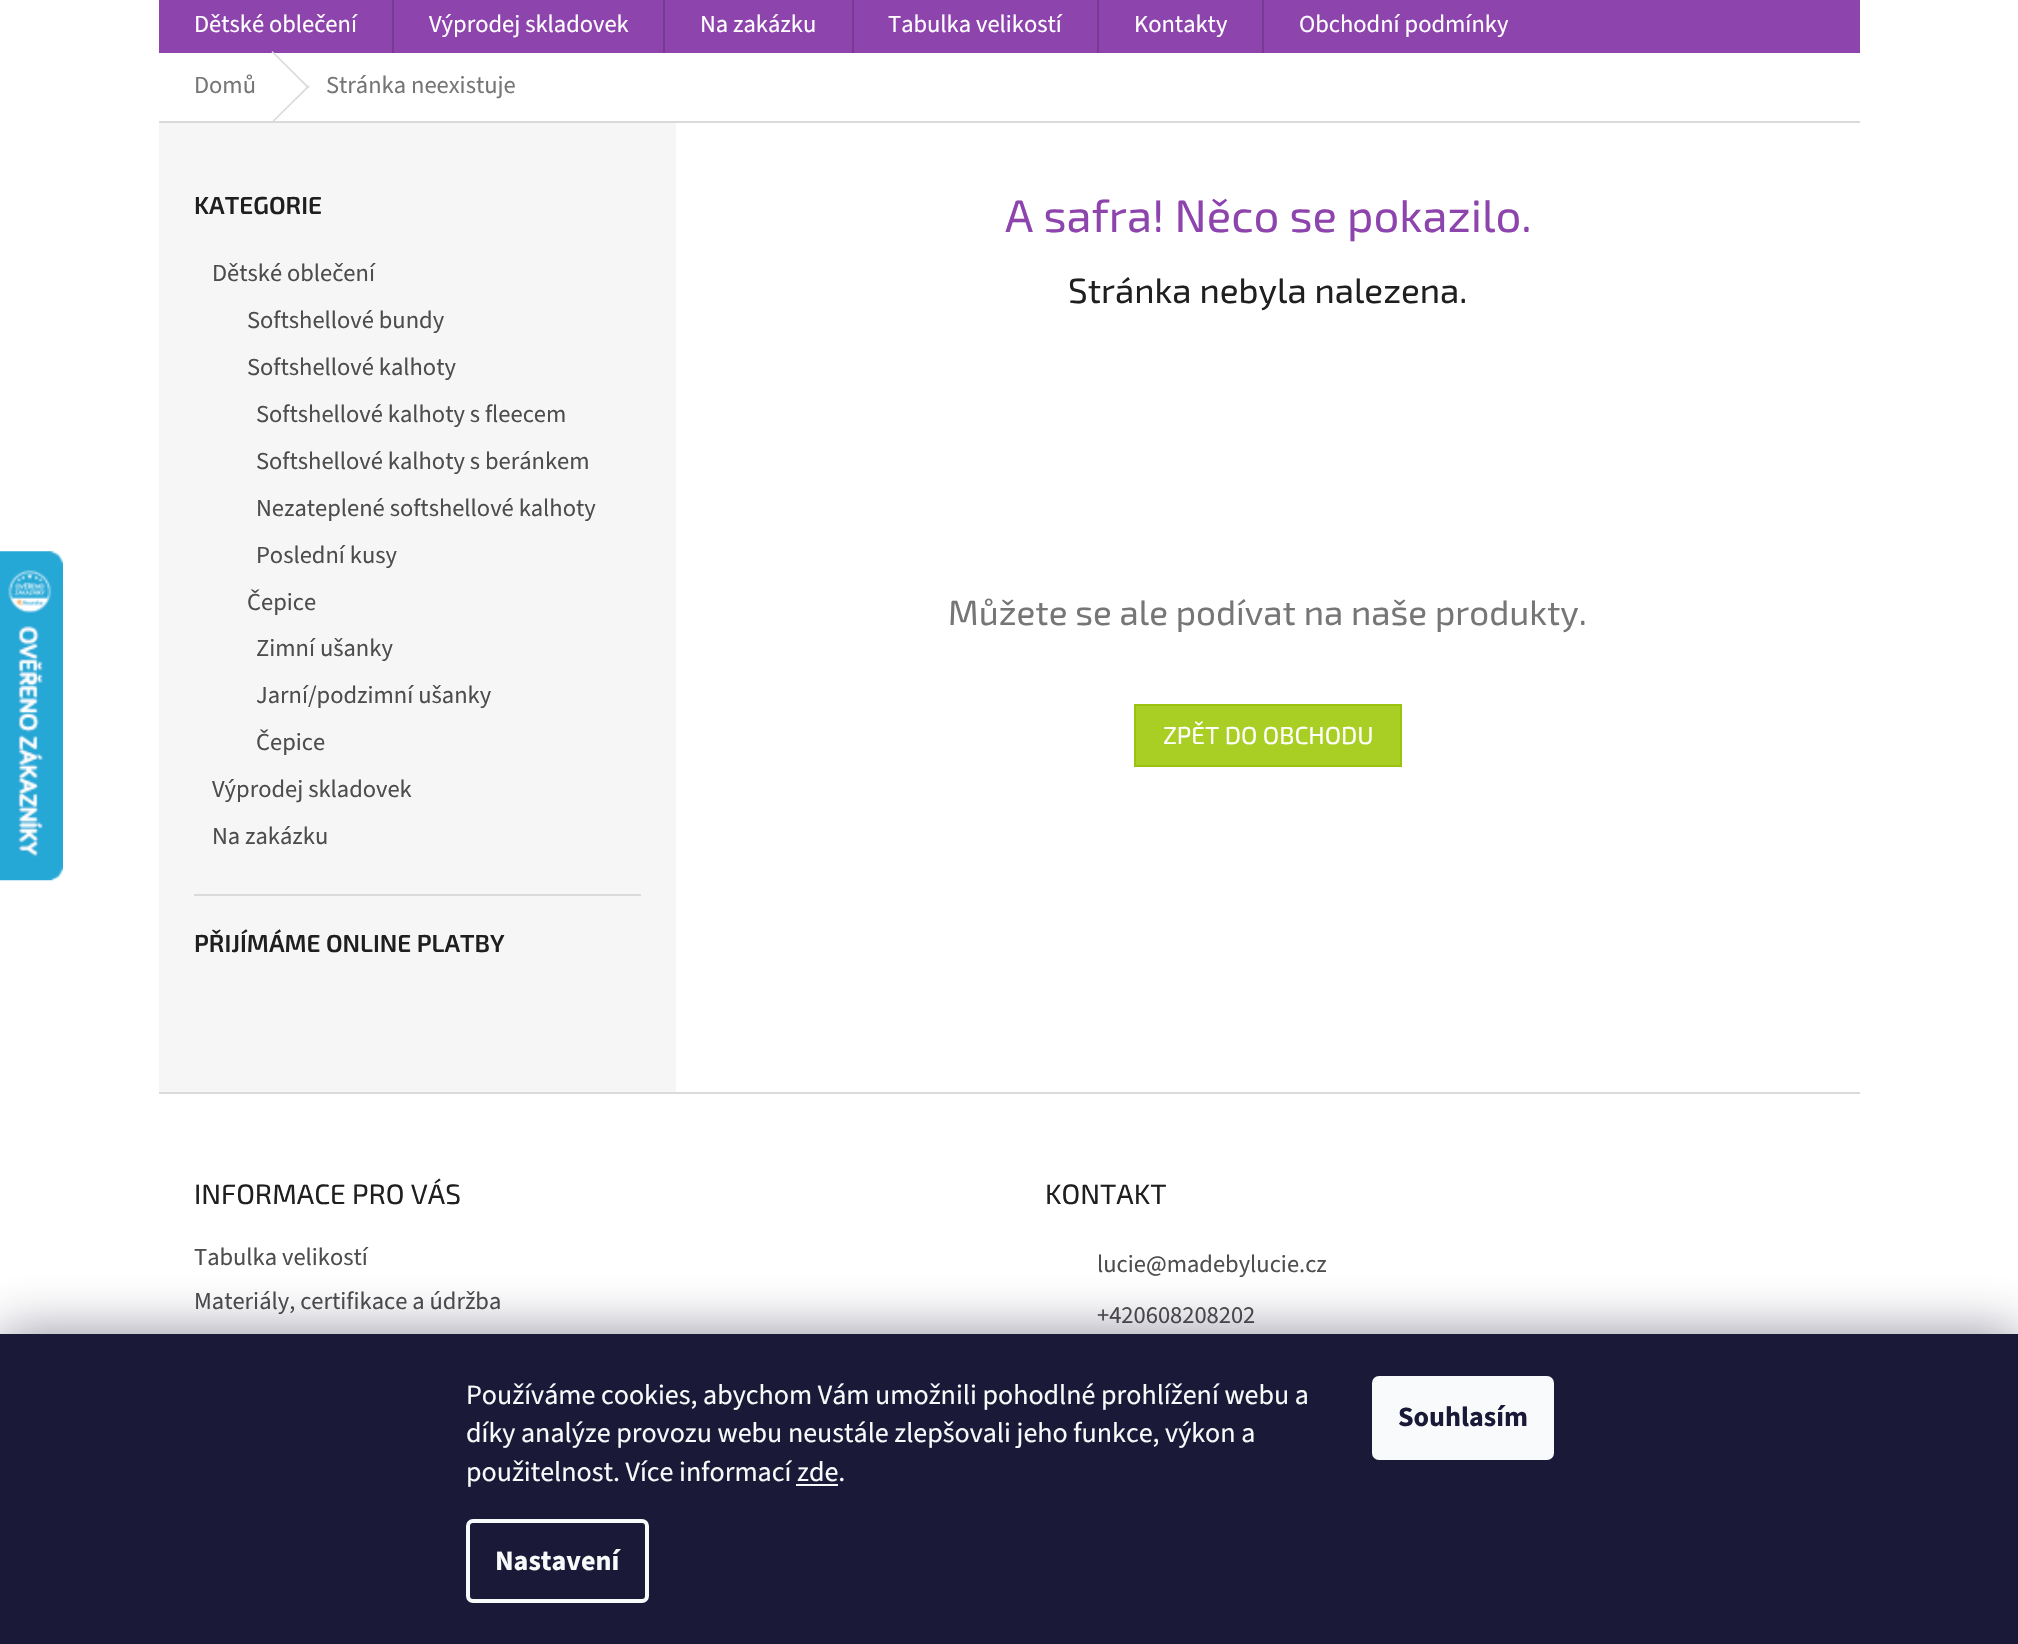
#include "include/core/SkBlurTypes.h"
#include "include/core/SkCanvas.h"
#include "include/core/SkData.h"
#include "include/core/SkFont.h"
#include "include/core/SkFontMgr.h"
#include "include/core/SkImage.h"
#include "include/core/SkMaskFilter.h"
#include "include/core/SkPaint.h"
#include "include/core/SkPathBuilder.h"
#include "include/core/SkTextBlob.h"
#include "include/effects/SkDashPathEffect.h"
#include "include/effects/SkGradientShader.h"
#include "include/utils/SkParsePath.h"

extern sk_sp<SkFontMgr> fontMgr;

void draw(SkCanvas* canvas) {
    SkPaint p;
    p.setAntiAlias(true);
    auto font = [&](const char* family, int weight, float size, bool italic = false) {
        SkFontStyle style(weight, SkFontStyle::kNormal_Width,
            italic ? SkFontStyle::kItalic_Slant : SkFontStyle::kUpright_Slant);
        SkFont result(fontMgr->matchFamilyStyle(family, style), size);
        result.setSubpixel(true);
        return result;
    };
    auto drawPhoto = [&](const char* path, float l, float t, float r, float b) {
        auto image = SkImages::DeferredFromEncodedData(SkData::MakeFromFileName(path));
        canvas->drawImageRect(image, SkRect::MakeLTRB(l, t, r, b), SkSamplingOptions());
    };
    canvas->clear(0xFFFFFFFF);
    drawPhoto("media/1.png", 0, 551, 63, 881);
    p.setColor(0xFF8E44AD);
    canvas->drawRect(SkRect::MakeLTRB(159, 0, 1860, 53), p);
    auto font1 = font("Source Sans 3", 400, 24.5f);
    p.setColor(0xFFFFFFFF);
    canvas->drawString("Dětské oblečení", 194, 32, font1, p);
    p.setColor(0xFF783993);
    canvas->drawRect(SkRect::MakeLTRB(392, 0, 394, 53), p);
    p.setColor(0xFFFFFFFF);
    canvas->drawString("Výprodej skladovek", 429, 32, font1, p);
    p.setColor(0xFF783993);
    canvas->drawRect(SkRect::MakeLTRB(663, 0, 665, 53), p);
    p.setColor(0xFFFFFFFF);
    canvas->drawString("Na zakázku", 700, 32, font1, p);
    p.setColor(0xFF783993);
    canvas->drawRect(SkRect::MakeLTRB(852, 0, 854, 53), p);
    p.setColor(0xFFFFFFFF);
    canvas->drawString("Tabulka velikostí", 888, 32, font1, p);
    p.setColor(0xFF783993);
    canvas->drawRect(SkRect::MakeLTRB(1097, 0, 1099, 53), p);
    p.setColor(0xFFFFFFFF);
    canvas->drawString("Kontakty", 1134, 32, font1, p);
    p.setColor(0xFF783993);
    canvas->drawRect(SkRect::MakeLTRB(1262, 0, 1264, 53), p);
    p.setColor(0xFFFFFFFF);
    canvas->drawString("Obchodní podmínky", 1299, 32, font1, p);
    p.setColor(0xFFDADADA);
    canvas->drawRect(SkRect::MakeLTRB(159, 121, 1860, 123), p);
    p.setColor(0xFF767676);
    canvas->drawString("Domů", 194, 93, font1, p);
    p.setColor(0xFFDADADA);
    canvas->drawPath(SkPathBuilder().moveTo(271.5f, 52).lineTo(272.5f, 51).lineTo(309.5f, 87.5f).lineTo(308, 88.5f).close().detach(), p);
    canvas->drawPath(SkPathBuilder().moveTo(308, 85.5f).lineTo(309.5f, 86.5f).lineTo(272.5f, 123).lineTo(271.5f, 122).close().detach(), p);
    p.setColor(0xFF767676);
    canvas->drawString("Stránka neexistuje", 326, 93, font1, p);
    p.setColor(0xFFF6F6F6);
    canvas->drawRect(SkRect::MakeLTRB(159, 123, 676, 1092), p);
    p.setColor(0xFFDADADA);
    canvas->drawRect(SkRect::MakeLTRB(194, 894, 641, 896), p);
    auto font2 = font("Exo 2", 600, 24.5f);
    p.setColor(0xFF1F1F1F);
    canvas->drawString("KATEGORIE", 194, 214, font2, p);
    p.setColor(0xFF4D4D4D);
    {
        const struct { const char* s; float x, y; } items[] = {
            {"Dětské oblečení", 212, 281},
            {"Softshellové bundy", 247, 328},
            {"Softshellové kalhoty", 247, 375},
            {"Softshellové kalhoty s fleecem", 256, 422},
            {"Softshellové kalhoty s beránkem", 256, 469},
            {"Nezateplené softshellové kalhoty", 256, 516},
            {"Poslední kusy", 256, 563},
            {"Čepice", 247, 610},
            {"Zimní ušanky", 256, 656},
            {"Jarní/podzimní ušanky", 256, 703},
            {"Čepice", 256, 750},
            {"Výprodej skladovek", 212, 797},
            {"Na zakázku", 212, 844},
        };
        for (auto [s, x, y] : items) {
            canvas->drawString(s, x, y, font1, p);
        }
    }
    p.setColor(0xFF1F1F1F);
    canvas->drawString("PŘIJÍMÁME ONLINE PLATBY", 194, 952, font2, p);
    auto font3 = font("Exo 2", 400, 45.5f);
    p.setColor(0xFF8E44AD);
    canvas->drawString("A safra! Něco se pokazilo.", 1005, 232, font3, p);
    auto font4 = font("Exo 2", 400, 35);
    p.setColor(0xFF1F1F1F);
    canvas->drawString("Stránka nebyla nalezena.", 1068, 303, font4, p);
    p.setColor(0xFF767676);
    canvas->drawString("Můžete se ale podívat na naše produkty.", 948, 625, font4, p);
    p.setColor(0xFFAACF24);
    canvas->drawRect(SkRect::MakeLTRB(1135, 705, 1401, 766), p);
    p.setStyle(SkPaint::kStroke_Style);
    p.setStrokeWidth(2);
    p.setColor(0xFF9BC20E);
    canvas->drawRect(SkRect::MakeLTRB(1135, 705, 1401, 766), p);
    auto font5 = font("Exo 2", 400, 24.5f);
    p.setStyle(SkPaint::kFill_Style);
    p.setColor(0xFFFFFFFF);
    canvas->drawString("ZPĚT DO OBCHODU", 1163, 744, font5, p);
    p.setColor(0xFFDADADA);
    canvas->drawRect(SkRect::MakeLTRB(159, 1092, 1860, 1094), p);
    auto font6 = font("Exo 2", 400, 28);
    p.setColor(0xFF1F1F1F);
    canvas->drawString("INFORMACE PRO VÁS", 194, 1204, font6, p);
    p.setColor(0xFF4D4D4D);
    canvas->drawString("Tabulka velikostí", 194, 1265, font1, p);
    canvas->drawString("Materiály, certifikace a údržba", 194, 1309, font1, p);
    p.setColor(0xFF1F1F1F);
    canvas->drawString("KONTAKT", 1045, 1204, font6, p);
    p.setColor(0xFF4D4D4D);
    canvas->drawString("lucie@madebylucie.cz", 1097, 1272, font1, p);
    canvas->drawString("+420608208202", 1097, 1323, font1, p);
    p.setColor(0x801B1939);
    p.setMaskFilter(SkMaskFilter::MakeBlur(kNormal_SkBlurStyle, 26));
    canvas->drawRect(SkRect::MakeLTRB(0, 1334, 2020, 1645), p);
    p.setMaskFilter(nullptr);
    p.setColor(0xFF1A1937);
    canvas->drawRect(SkRect::MakeLTRB(0, 1334, 2018, 1644), p);
    auto font7 = font("Source Sans 3", 400, 28);
    p.setColor(0xFFF8FAFB);
    {
        const struct { const char* s; float x, y; } items[] = {
            {"Používáme cookies, abychom Vám umožnili pohodlné prohlížení webu a", 466, 1404},
            {"díky analýze provozu webu neustále zlepšovali jeho funkce, výkon a", 466, 1442},
            {"použitelnost. Více informací zde.", 466, 1481},
        };
        for (auto [s, x, y] : items) {
            canvas->drawString(s, x, y, font7, p);
        }
    }
    canvas->drawRect(SkRect::MakeLTRB(796, 1484, 838, 1486), p);
    p.setStyle(SkPaint::kStroke_Style);
    p.setStrokeWidth(4);
    canvas->drawRoundRect(SkRect::MakeLTRB(468, 1521, 647, 1601), 5, 5, p);
    auto font8 = font("Source Sans 3", 700, 28);
    p.setStyle(SkPaint::kFill_Style);
    canvas->drawString("Nastavení", 495, 1570, font8, p);
    canvas->drawRoundRect(SkRect::MakeLTRB(1372, 1376, 1554, 1460), 7, 7, p);
    p.setColor(0xFF1A1937);
    canvas->drawString("Souhlasím", 1398, 1426, font8, p);
}
